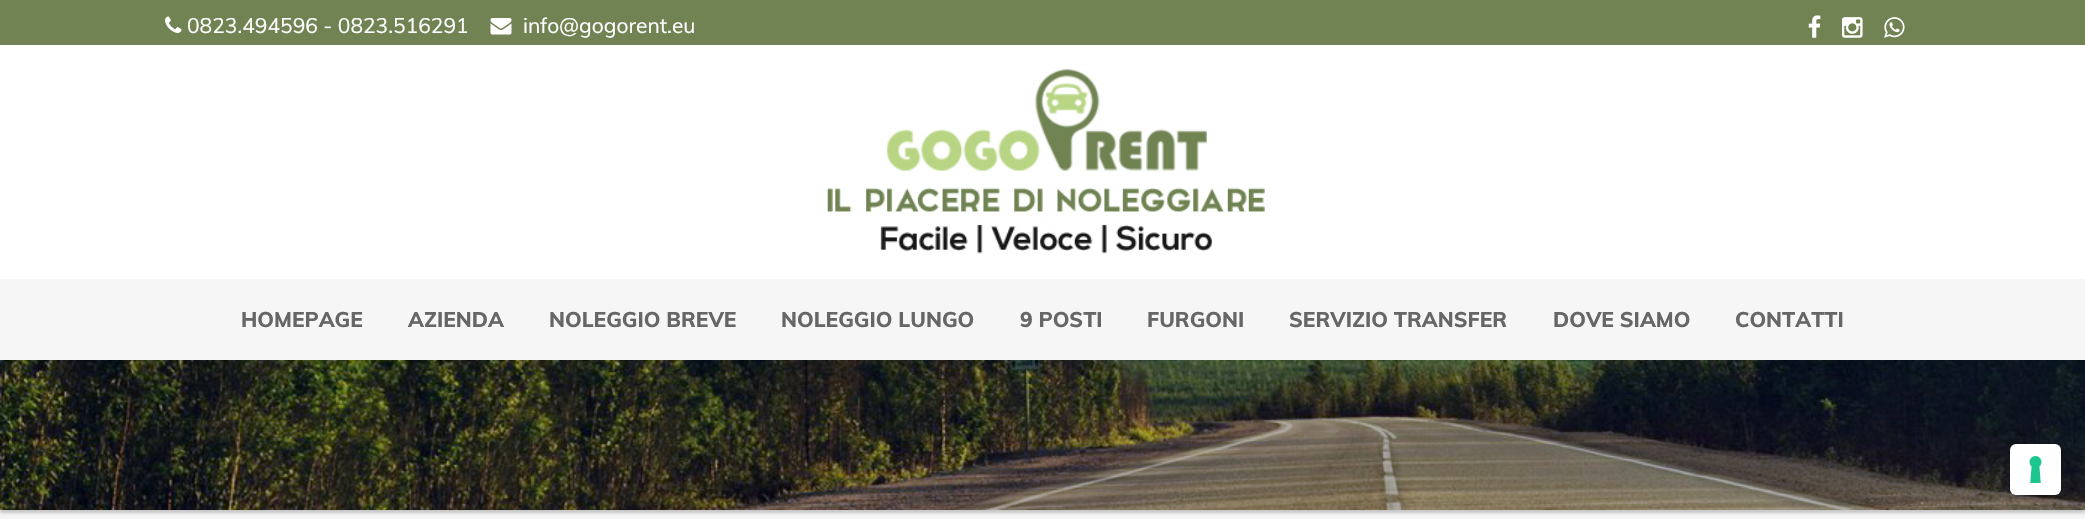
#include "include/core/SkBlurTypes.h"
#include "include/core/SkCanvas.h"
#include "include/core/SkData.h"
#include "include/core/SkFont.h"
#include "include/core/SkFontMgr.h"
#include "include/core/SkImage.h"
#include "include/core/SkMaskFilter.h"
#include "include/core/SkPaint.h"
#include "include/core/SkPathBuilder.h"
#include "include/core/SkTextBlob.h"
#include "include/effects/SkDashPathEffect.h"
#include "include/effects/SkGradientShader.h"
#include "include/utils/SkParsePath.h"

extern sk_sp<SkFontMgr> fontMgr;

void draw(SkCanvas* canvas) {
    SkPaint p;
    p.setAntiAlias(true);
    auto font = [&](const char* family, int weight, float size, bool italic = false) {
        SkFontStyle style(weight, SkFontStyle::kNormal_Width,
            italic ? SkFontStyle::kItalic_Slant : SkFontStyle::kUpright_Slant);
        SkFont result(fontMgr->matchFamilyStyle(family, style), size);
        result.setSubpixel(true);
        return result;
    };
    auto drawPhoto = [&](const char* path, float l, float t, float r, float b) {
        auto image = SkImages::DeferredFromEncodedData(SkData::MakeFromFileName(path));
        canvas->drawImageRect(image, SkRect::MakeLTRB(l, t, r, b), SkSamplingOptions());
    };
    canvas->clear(0xFFF6F6F6);
    p.setColor(0xFFFFFFFF);
    canvas->drawRect(SkRect::MakeLTRB(0, 45, 2085, 279), p);
    p.setColor(0xFF718353);
    canvas->drawRect(SkRect::MakeLTRB(0, 0, 2085, 45), p);
    drawPhoto("media/1.png", 165, 16, 182, 33);
    auto font1 = font("Muli", 400, 21);
    p.setColor(0xFFFFFFFF);
    canvas->drawString("0823.494596 - 0823.516291", 187, 33, font1, p);
    drawPhoto("media/2.png", 490, 18, 512, 35);
    canvas->drawString("info@gogorent.eu", 523, 33, font1, p);
    drawPhoto("media/3.png", 1808, 15, 1821, 38);
    drawPhoto("media/4.png", 1842, 17, 1863, 38);
    drawPhoto("media/5.png", 1884, 17, 1905, 38);
    drawPhoto("media/6.png", 827, 69, 1265, 254);
    auto font2 = font("Muli", 800, 21);
    p.setColor(0xFF666666);
    {
        const struct { const char* s; float x, y; } items[] = {
            {"HOMEPAGE", 241, 327},
            {"AZIENDA", 408, 327},
            {"NOLEGGIO BREVE", 549, 327},
            {"NOLEGGIO LUNGO", 781, 327},
            {"9 POSTI", 1020, 327},
            {"FURGONI", 1147, 327},
            {"SERVIZIO TRANSFER", 1289, 327},
            {"DOVE SIAMO", 1553, 327},
            {"CONTATTI", 1735, 327},
        };
        for (auto [s, x, y] : items) {
            canvas->drawString(s, x, y, font2, p);
        }
    }
    p.setColor(0x33000000);
    p.setMaskFilter(SkMaskFilter::MakeBlur(kNormal_SkBlurStyle, 1.5f));
    canvas->drawRect(SkRect::MakeLTRB(0, 363, 2085, 513), p);
    p.setMaskFilter(nullptr);
    drawPhoto("media/7.png", 0, 360, 2085, 510);
    p.setStyle(SkPaint::kStroke_Style);
    p.setStrokeWidth(2);
    p.setColor(0x26000000);
    canvas->drawRoundRect(SkRect::MakeLTRB(2010, 444, 2062, 496), 7, 7, p);
    p.setStyle(SkPaint::kFill_Style);
    p.setColor(0xFFFFFFFF);
    canvas->drawRoundRect(SkRect::MakeLTRB(2010, 444, 2061, 495), 6, 6, p);
    drawPhoto("media/8.png", 2029, 456, 2042, 483);
}
